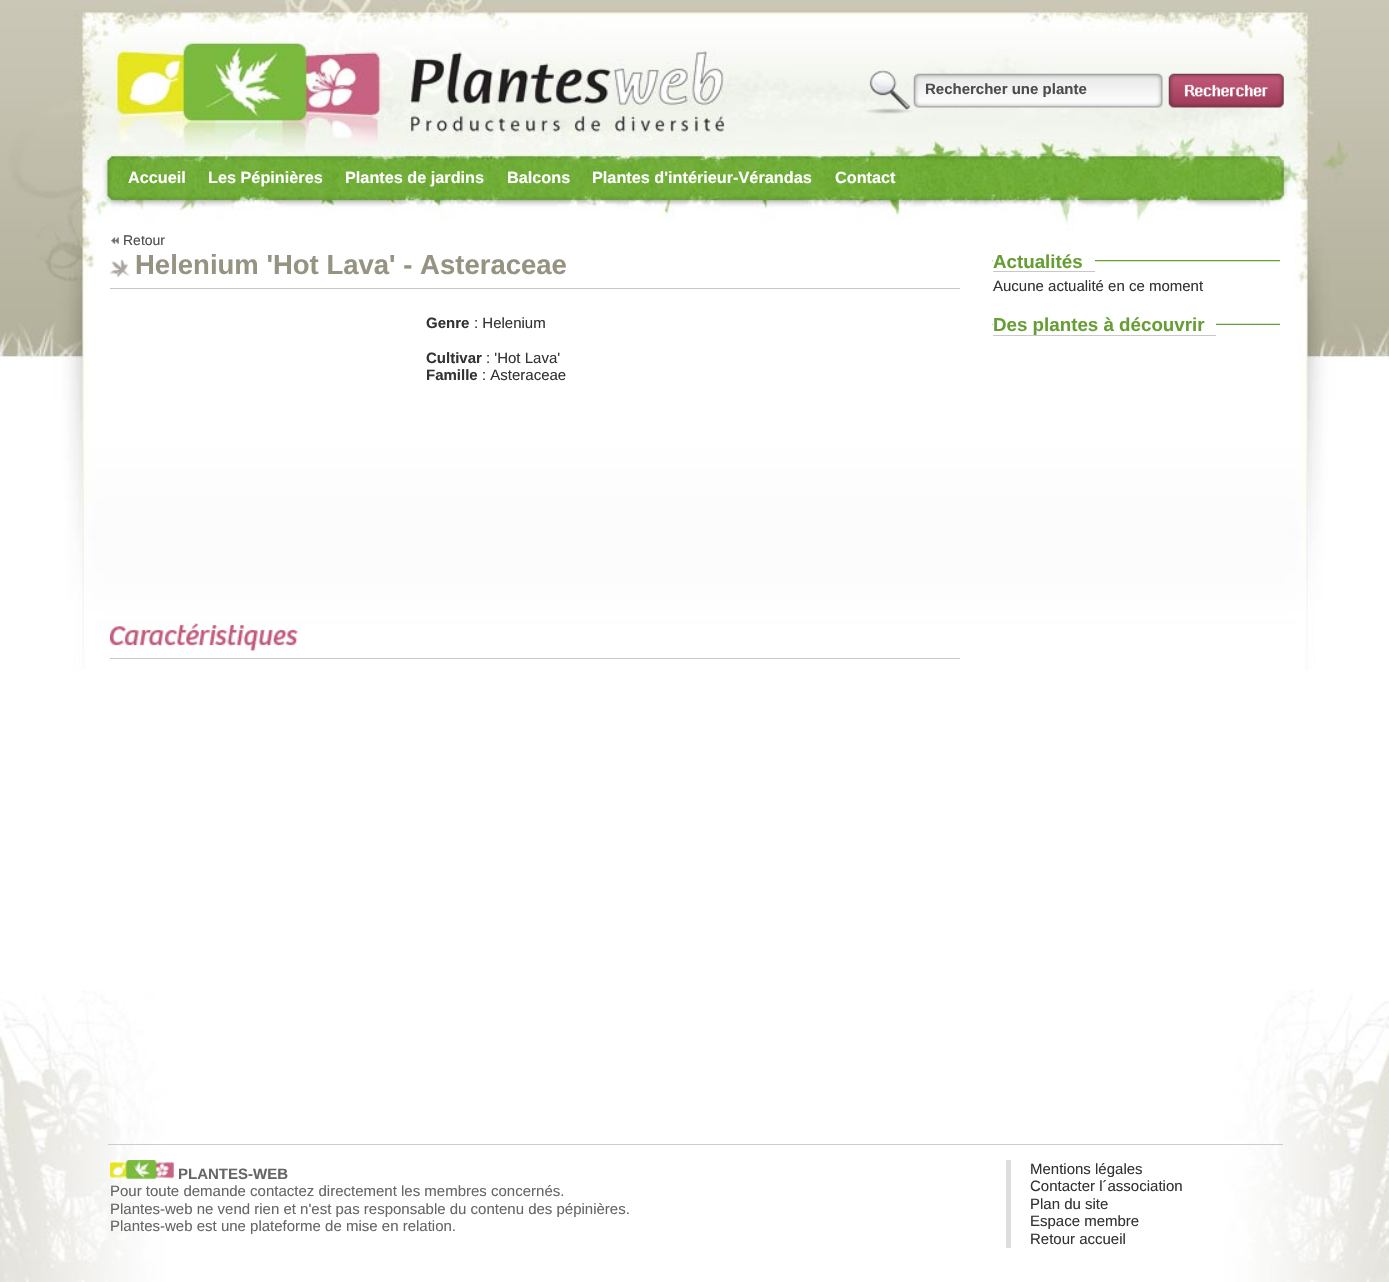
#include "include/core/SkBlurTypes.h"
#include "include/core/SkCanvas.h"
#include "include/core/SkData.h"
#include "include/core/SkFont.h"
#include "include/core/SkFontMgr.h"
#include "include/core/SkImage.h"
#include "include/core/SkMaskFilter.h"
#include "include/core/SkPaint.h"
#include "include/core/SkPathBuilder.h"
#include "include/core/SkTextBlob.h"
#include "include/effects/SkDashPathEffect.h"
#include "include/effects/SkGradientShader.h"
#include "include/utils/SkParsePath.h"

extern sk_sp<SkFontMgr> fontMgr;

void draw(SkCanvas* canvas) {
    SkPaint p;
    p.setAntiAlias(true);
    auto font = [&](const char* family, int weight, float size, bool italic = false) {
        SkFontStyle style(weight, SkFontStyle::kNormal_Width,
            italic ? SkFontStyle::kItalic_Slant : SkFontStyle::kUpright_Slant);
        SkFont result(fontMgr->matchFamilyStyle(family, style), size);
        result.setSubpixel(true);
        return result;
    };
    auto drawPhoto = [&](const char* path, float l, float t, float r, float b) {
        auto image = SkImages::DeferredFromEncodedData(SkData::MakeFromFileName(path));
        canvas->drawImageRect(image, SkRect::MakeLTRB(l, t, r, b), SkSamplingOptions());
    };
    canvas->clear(0xFFFFFFFF);
    drawPhoto("media/1.png", 0, 0, 1389, 670);
    drawPhoto("media/2.png", 0, 990, 1389, 1282);
    drawPhoto("media/3.png", 866, 70, 1163, 114);
    auto font1 = font("Liberation Sans", 700, 15);
    p.setColor(0xFF4C4C4C);
    canvas->drawString("Rechercher une plante", 925, 94, font1, p);
    drawPhoto("media/4.png", 1168, 73, 1284, 108);
    auto font2 = font("Liberation Sans", 700, 16.25f);
    p.setColor(0xFFFFFFFF);
    {
        const struct { const char* s; float x, y; } items[] = {
            {"Accueil", 128, 183},
            {"Les Pépinières", 208, 183},
            {"Plantes de jardins", 345, 183},
            {"Balcons", 507, 183},
            {"Plantes d'intérieur-Vérandas", 592, 183},
            {"Contact", 835, 183},
        };
        for (auto [s, x, y] : items) {
            canvas->drawString(s, x, y, font2, p);
        }
    }
    drawPhoto("media/5.png", 111, 237, 119, 244);
    auto font3 = font("Liberation Sans", 400, 14);
    p.setColor(0xFF4C4C4C);
    canvas->drawString("Retour", 123, 245, font3, p);
    drawPhoto("media/6.png", 110, 259, 130, 278);
    p.setColor(0xFFC7C7C7);
    canvas->drawRect(SkRect::MakeLTRB(110, 288, 960, 289), p);
    auto font4 = font("Liberation Sans", 700, 27.5f);
    p.setColor(0xFF969382);
    canvas->drawString("Helenium 'Hot Lava' - Asteraceae", 135, 274, font4, p);
    p.setColor(0xFF333333);
    canvas->drawString("Genre", 426, 328, font1, p);
    auto font5 = font("Liberation Sans", 400, 15);
    canvas->drawString(": Helenium", 474, 328, font5, p);
    canvas->drawString("Cultivar", 426, 363, font1, p);
    canvas->drawString(": 'Hot Lava'", 486, 363, font5, p);
    canvas->drawString("Famille", 426, 380, font1, p);
    canvas->drawString(": Asteraceae", 482, 380, font5, p);
    p.setColor(0xFFC7C7C7);
    canvas->drawRect(SkRect::MakeLTRB(110, 658, 960, 659), p);
    drawPhoto("media/7.png", 110, 623, 298, 652);
    drawPhoto("media/8.png", 992, 260, 1280, 262);
    p.setColor(0xFFFFFFFF);
    canvas->drawRect(SkRect::MakeLTRB(993, 260, 1095, 262), p);
    auto font6 = font("Liberation Sans", 700, 18.75f);
    p.setColor(0xFF679E34);
    canvas->drawString("Actualités", 993, 268, font6, p);
    p.setColor(0xFFC7C7C7);
    canvas->drawRect(SkRect::MakeLTRB(993, 271, 1095, 272), p);
    p.setColor(0xFF333333);
    canvas->drawString("Aucune actualité en ce moment", 993, 291, font5, p);
    drawPhoto("media/9.png", 992, 323, 1280, 325);
    p.setColor(0xFFFFFFFF);
    canvas->drawRect(SkRect::MakeLTRB(993, 323, 1216, 325), p);
    p.setColor(0xFF679E34);
    canvas->drawString("Des plantes à découvrir", 993, 331, font6, p);
    p.setColor(0xFFC7C7C7);
    canvas->drawRect(SkRect::MakeLTRB(993, 335, 1216, 336), p);
    p.setColor(0xFFCCCCCC);
    canvas->drawRect(SkRect::MakeLTRB(108, 1144, 1283, 1145), p);
    drawPhoto("media/10.png", 110, 1160, 174, 1179);
    p.setColor(0xFF666666);
    canvas->drawString("PLANTES-WEB", 178, 1179, font1, p);
    {
        const struct { const char* s; float x, y; } items[] = {
            {"Pour toute demande contactez directement les membres concernés.", 110, 1196},
            {"Plantes-web ne vend rien et n'est pas responsable du contenu des pépinières.", 110, 1214},
            {"Plantes-web est une plateforme de mise en relation.", 110, 1231},
        };
        for (auto [s, x, y] : items) {
            canvas->drawString(s, x, y, font5, p);
        }
    }
    p.setColor(0xFFDDDDDD);
    canvas->drawRect(SkRect::MakeLTRB(1006, 1160, 1011, 1248), p);
    p.setColor(0xFF333333);
    {
        const struct { const char* s; float x, y; } items[] = {
            {"Mentions légales", 1030, 1174},
            {"Contacter l´association", 1030, 1191},
            {"Plan du site", 1030, 1209},
            {"Espace membre", 1030, 1226},
            {"Retour accueil", 1030, 1244},
        };
        for (auto [s, x, y] : items) {
            canvas->drawString(s, x, y, font5, p);
        }
    }
}
